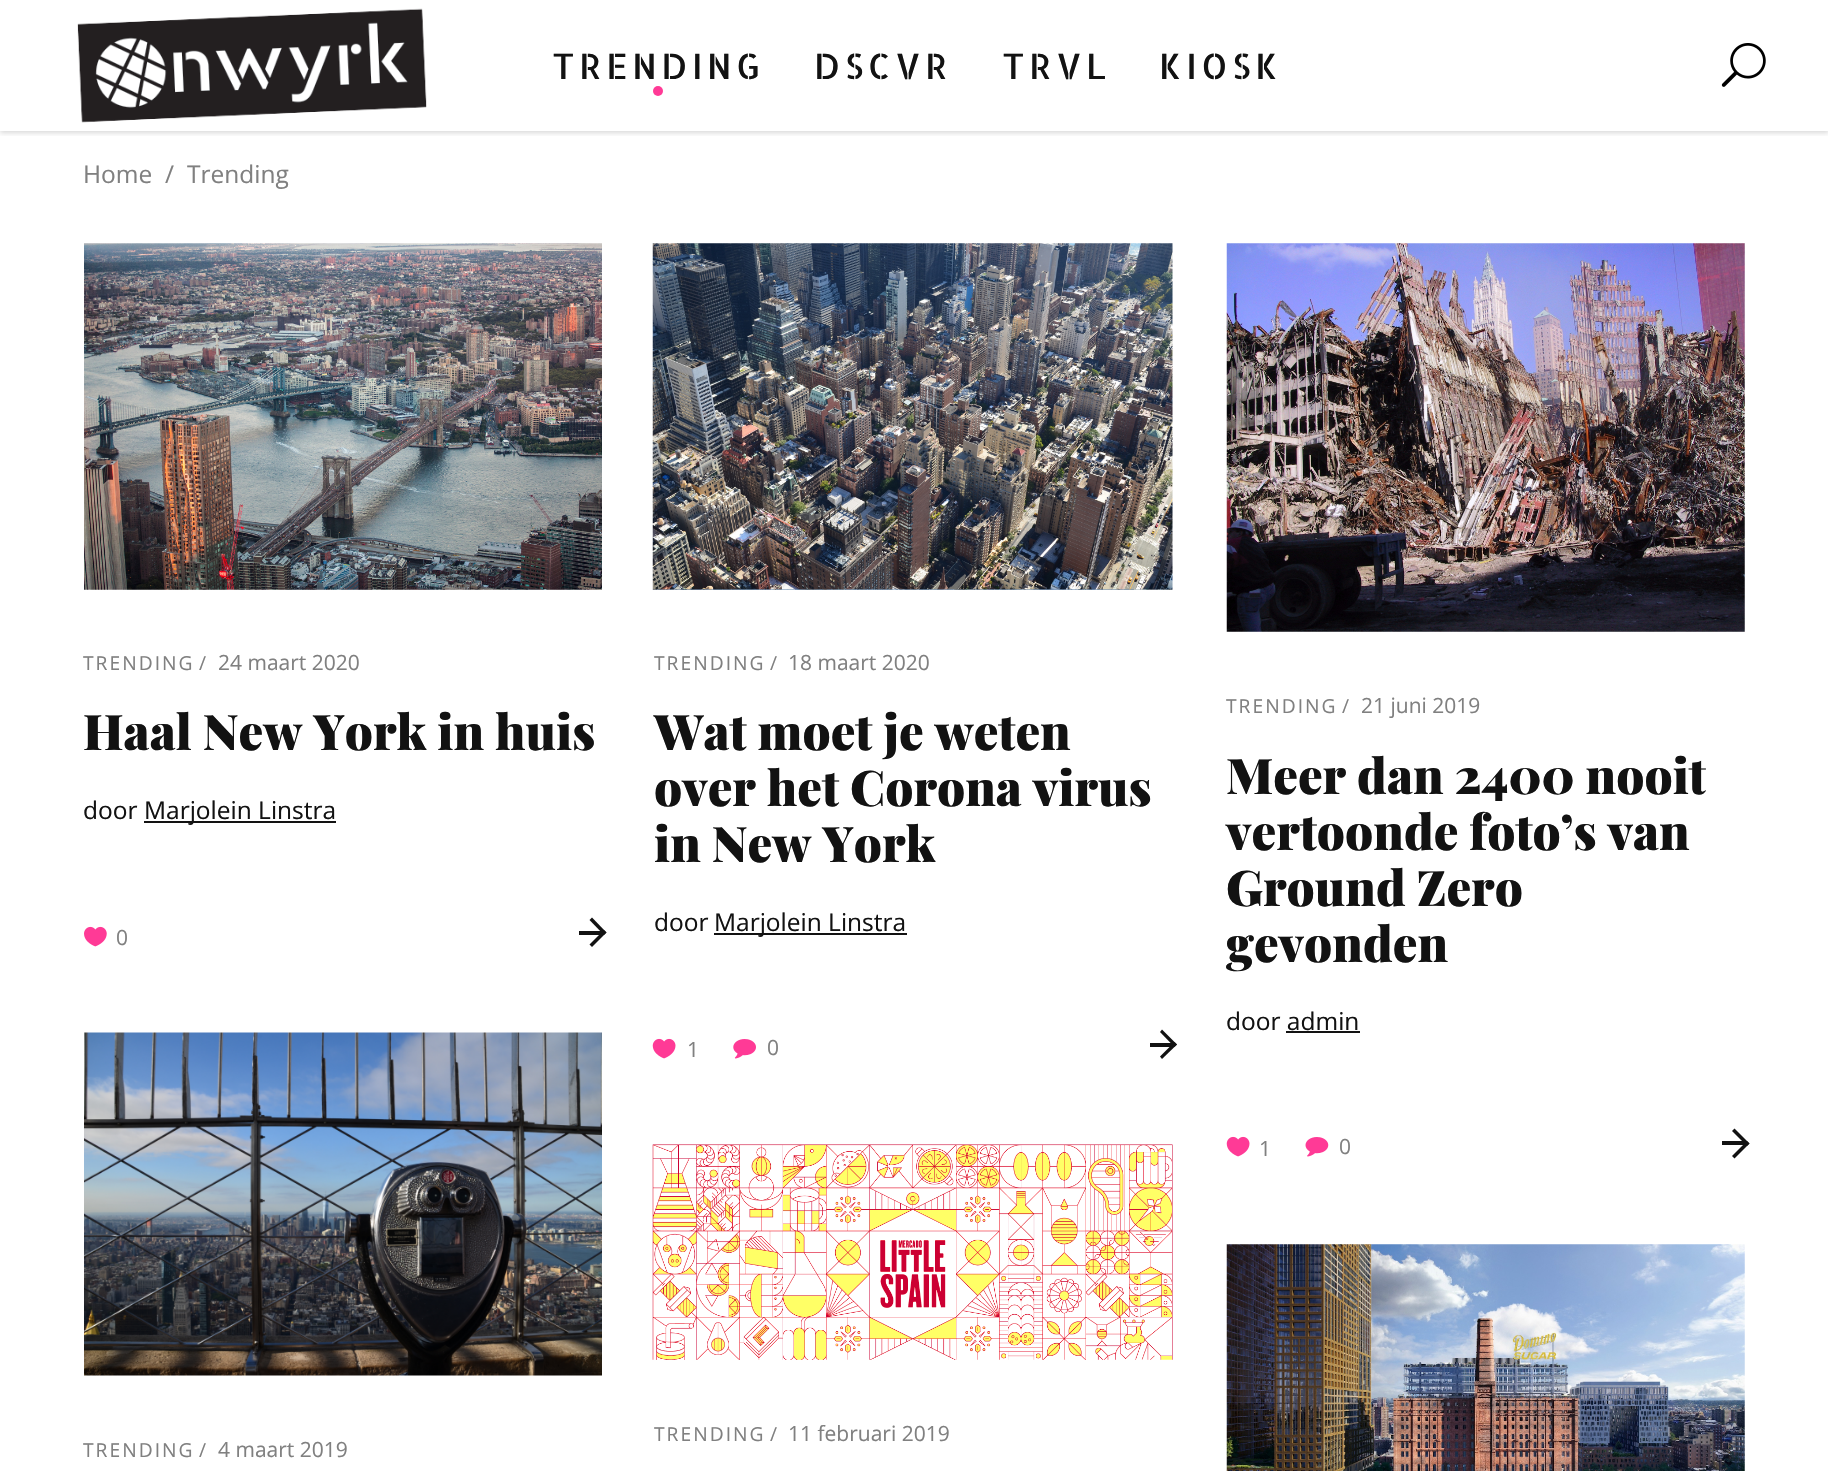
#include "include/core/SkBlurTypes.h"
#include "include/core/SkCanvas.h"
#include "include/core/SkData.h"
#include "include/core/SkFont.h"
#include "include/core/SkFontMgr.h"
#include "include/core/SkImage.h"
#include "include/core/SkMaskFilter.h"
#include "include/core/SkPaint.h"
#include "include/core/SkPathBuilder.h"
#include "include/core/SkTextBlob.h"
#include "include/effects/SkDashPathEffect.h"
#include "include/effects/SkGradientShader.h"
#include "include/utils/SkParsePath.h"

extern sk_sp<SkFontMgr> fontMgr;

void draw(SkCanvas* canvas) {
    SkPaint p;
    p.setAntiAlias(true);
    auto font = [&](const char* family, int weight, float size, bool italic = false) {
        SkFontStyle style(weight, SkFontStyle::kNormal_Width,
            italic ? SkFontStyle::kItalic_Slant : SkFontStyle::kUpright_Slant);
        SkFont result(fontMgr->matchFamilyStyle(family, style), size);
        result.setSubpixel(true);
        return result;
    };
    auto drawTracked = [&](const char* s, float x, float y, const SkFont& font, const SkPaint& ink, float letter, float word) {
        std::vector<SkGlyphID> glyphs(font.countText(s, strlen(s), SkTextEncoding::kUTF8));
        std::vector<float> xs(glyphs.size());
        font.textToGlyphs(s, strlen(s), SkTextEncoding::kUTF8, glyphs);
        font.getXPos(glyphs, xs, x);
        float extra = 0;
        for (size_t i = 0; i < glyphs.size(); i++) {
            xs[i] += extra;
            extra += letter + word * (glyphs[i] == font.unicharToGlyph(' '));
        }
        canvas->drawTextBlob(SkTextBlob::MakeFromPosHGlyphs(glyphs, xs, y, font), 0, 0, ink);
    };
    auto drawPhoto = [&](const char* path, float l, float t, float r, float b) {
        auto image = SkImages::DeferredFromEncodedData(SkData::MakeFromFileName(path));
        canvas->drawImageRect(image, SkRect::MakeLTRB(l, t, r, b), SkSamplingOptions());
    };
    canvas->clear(0xFFFFFFFF);
    canvas->save();
    canvas->clipRect(SkRect::MakeLTRB(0, 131, 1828, 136));
    p.setColor(0x26000000);
    p.setMaskFilter(SkMaskFilter::MakeBlur(kNormal_SkBlurStyle, 2.5f));
    canvas->drawRect(SkRect::MakeLTRB(0, 2, 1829, 133), p);
    p.setMaskFilter(nullptr);
    canvas->restore();
    drawPhoto("media/1.png", 77, 8, 427, 123);
    auto font1 = font("Allerta Stencil", 400, 35);
    p.setColor(0xFF121212);
    drawTracked("TRENDING", 552, 79, font1, p, 4.5f, 0);
    p.setColor(0xFFFF3A96);
    canvas->drawCircle(658, 91, 5, p);
    p.setColor(0xFF121212);
    {
        const struct { const char* s; float x, y; } items[] = {
            {"DSCVR", 814, 79},
            {"TRVL", 1002, 79},
            {"KIOSK", 1159, 79},
        };
        for (auto [s, x, y] : items) {
            drawTracked(s, x, y, font1, p, 4.5f, 0);
        }
    }
    drawPhoto("media/2.png", 1721, 43, 1766, 87);
    auto font2 = font("Open Sans", 400, 24.5f);
    p.setColor(0xFF808080);
    {
        const struct { const char* s; float x, y; } items[] = {
            {"Home", 83, 183},
            {"/", 165, 183},
            {"Trending", 187, 183},
        };
        for (auto [s, x, y] : items) {
            canvas->drawString(s, x, y, font2, p);
        }
    }
    drawPhoto("media/3.png", 84, 243, 602, 590);
    auto font3 = font("Open Sans", 400, 19.25f);
    drawTracked("TRENDING", 83, 670, font3, p, 2, 0);
    drawTracked("/", 199, 670, font3, p, 2, 0);
    auto font4 = font("Open Sans", 400, 21);
    canvas->drawString("24 maart 2020", 218, 670, font4, p);
    auto font5 = font("Playfair Display", 900, 49);
    p.setColor(0xFF121212);
    canvas->drawString("Haal New York in huis", 83, 750, font5, p);
    canvas->drawString("door", 83, 819, font2, p);
    canvas->drawRect(SkRect::MakeLTRB(144, 821, 336, 823), p);
    canvas->drawString("Marjolein Linstra", 144, 819, font2, p);
    drawPhoto("media/4.png", 84, 926, 107, 947);
    p.setColor(0xFF808080);
    canvas->drawString("0", 116, 945, font4, p);
    p.setColor(0xFF121212);
    canvas->drawPath(SkPathBuilder().moveTo(604, 935).lineTo(589.5f, 920).lineTo(592, 917.5f).lineTo(606.5f, 932.5f).close().detach(), p);
    canvas->drawPath(SkPathBuilder().moveTo(592, 947).lineTo(589.5f, 944.5f).lineTo(604, 930).lineTo(606.5f, 932.5f).close().detach(), p);
    canvas->drawRect(SkRect::MakeLTRB(579, 931, 602, 935), p);
    drawPhoto("media/5.png", 652, 243, 1173, 590);
    p.setColor(0xFF808080);
    drawTracked("TRENDING", 654, 670, font3, p, 2, 0);
    drawTracked("/", 770, 670, font3, p, 2, 0);
    canvas->drawString("18 maart 2020", 788, 670, font4, p);
    p.setColor(0xFF121212);
    {
        const struct { const char* s; float x, y; } items[] = {
            {"Wat moet je weten", 654, 750},
            {"over het Corona virus", 654, 806},
            {"in New York", 654, 862},
        };
        for (auto [s, x, y] : items) {
            canvas->drawString(s, x, y, font5, p);
        }
    }
    canvas->drawString("door", 654, 931, font2, p);
    canvas->drawRect(SkRect::MakeLTRB(714, 933, 907, 935), p);
    canvas->drawString("Marjolein Linstra", 714, 931, font2, p);
    drawPhoto("media/6.png", 652, 1038, 676, 1059);
    p.setColor(0xFF808080);
    canvas->drawString("1", 687, 1057, font4, p);
    drawPhoto("media/7.png", 733, 1039, 756, 1059);
    canvas->drawString("0", 767, 1055, font4, p);
    p.setColor(0xFF121212);
    canvas->drawPath(SkPathBuilder().moveTo(1174.5f, 1047).lineTo(1160, 1032).lineTo(1162, 1029.5f).lineTo(1177, 1044.5f).close().detach(), p);
    canvas->drawPath(SkPathBuilder().moveTo(1162, 1059).lineTo(1160, 1056.5f).lineTo(1174.5f, 1042).lineTo(1177, 1044.5f).close().detach(), p);
    canvas->drawRect(SkRect::MakeLTRB(1150, 1043, 1173, 1047), p);
    drawPhoto("media/8.png", 1226, 243, 1745, 632);
    p.setColor(0xFF808080);
    drawTracked("TRENDING", 1226, 713, font3, p, 2, 0);
    drawTracked("/", 1342, 713, font3, p, 2, 0);
    canvas->drawString("21 juni 2019", 1361, 713, font4, p);
    p.setColor(0xFF121212);
    {
        const struct { const char* s; float x, y; } items[] = {
            {"Meer dan 2400 nooit", 1226, 794},
            {"vertoonde foto’s van", 1226, 850},
            {"Ground Zero", 1226, 906},
            {"gevonden", 1226, 962},
        };
        for (auto [s, x, y] : items) {
            canvas->drawString(s, x, y, font5, p);
        }
    }
    canvas->drawString("door admin", 1226, 1030, font2, p);
    canvas->drawRect(SkRect::MakeLTRB(1286, 1031, 1360, 1033), p);
    drawPhoto("media/6.png", 1226, 1136, 1250, 1157);
    p.setColor(0xFF808080);
    canvas->drawString("1", 1259, 1156, font4, p);
    drawPhoto("media/9.png", 1305, 1137, 1329, 1157);
    canvas->drawString("0", 1339, 1154, font4, p);
    p.setColor(0xFF121212);
    canvas->drawPath(SkPathBuilder().moveTo(1747, 1146).lineTo(1732, 1131).lineTo(1734.5f, 1128.5f).lineTo(1749.5f, 1143.5f).close().detach(), p);
    canvas->drawPath(SkPathBuilder().moveTo(1734.5f, 1158.5f).lineTo(1732, 1156).lineTo(1747, 1141).lineTo(1749.5f, 1143.5f).close().detach(), p);
    canvas->drawRect(SkRect::MakeLTRB(1722, 1141, 1745, 1145), p);
    drawPhoto("media/10.png", 652, 1144, 1173, 1360);
    p.setColor(0xFF808080);
    drawTracked("TRENDING", 654, 1441, font3, p, 2, 0);
    drawTracked("/", 770, 1441, font3, p, 2, 0);
    canvas->drawString("11 februari 2019", 788, 1441, font4, p);
    drawPhoto("media/11.png", 1226, 1244, 1745, 1471);
    drawPhoto("media/12.png", 84, 1032, 602, 1376);
    drawTracked("TRENDING", 83, 1457, font3, p, 2, 0);
    drawTracked("/", 199, 1457, font3, p, 2, 0);
    canvas->drawString("4 maart 2019", 218, 1457, font4, p);
}
